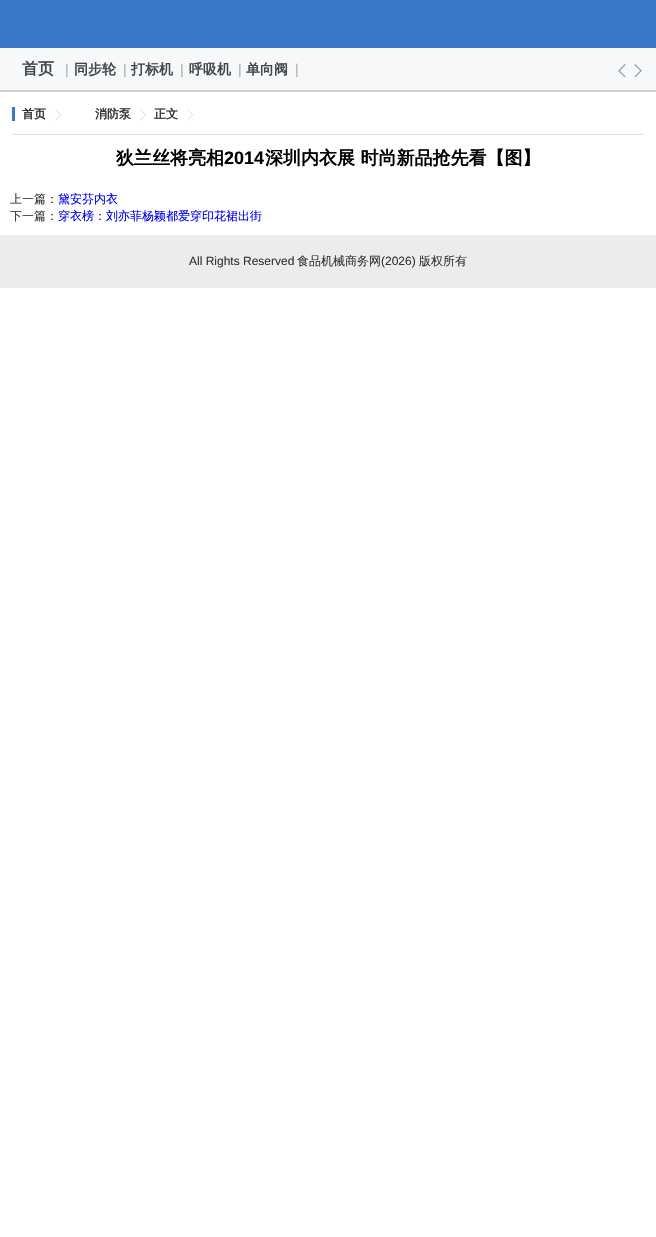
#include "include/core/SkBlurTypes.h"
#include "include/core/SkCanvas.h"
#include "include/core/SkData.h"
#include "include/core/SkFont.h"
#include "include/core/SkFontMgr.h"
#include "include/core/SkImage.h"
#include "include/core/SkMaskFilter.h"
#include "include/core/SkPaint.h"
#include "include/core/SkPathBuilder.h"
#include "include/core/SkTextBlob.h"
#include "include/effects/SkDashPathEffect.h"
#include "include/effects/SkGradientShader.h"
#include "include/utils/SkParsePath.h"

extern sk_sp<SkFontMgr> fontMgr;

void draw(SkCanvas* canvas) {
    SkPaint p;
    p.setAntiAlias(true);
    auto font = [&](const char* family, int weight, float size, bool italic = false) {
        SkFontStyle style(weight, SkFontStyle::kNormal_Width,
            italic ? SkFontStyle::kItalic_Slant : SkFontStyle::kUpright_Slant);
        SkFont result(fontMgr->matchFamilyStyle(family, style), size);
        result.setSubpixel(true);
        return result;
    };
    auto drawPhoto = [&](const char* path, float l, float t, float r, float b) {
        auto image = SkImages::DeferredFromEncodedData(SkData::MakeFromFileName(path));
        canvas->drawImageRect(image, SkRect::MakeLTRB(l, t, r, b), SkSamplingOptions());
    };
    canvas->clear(0xFFFFFFFF);
    {
        const struct { float l, t, r, b; SkColor color; } items[] = {
            {0, 0, 656, 48, 0xFF3778C7},
            {0, 48, 656, 90, 0xFFF6F8F9},
            {0, 90, 656, 92, 0xFFD1D1D1},
        };
        for (auto [l, t, r, b, color] : items) {
            p.setColor(color);
            canvas->drawRect(SkRect::MakeLTRB(l, t, r, b), p);
        }
    }
    auto font1 = font("WenQuanYi Zen Hei", 700, 16);
    p.setColor(0xFF42464A);
    canvas->drawString("首页", 22, 74, font1, p);
    auto font2 = font("Liberation Sans", 400, 14);
    p.setColor(0xFFAEAEAE);
    canvas->drawString("|", 65, 74, font2, p);
    auto font3 = font("WenQuanYi Zen Hei", 700, 14);
    p.setColor(0xFF42464A);
    canvas->drawString("同步轮", 74, 74, font3, p);
    p.setColor(0xFFAEAEAE);
    canvas->drawString("|", 123, 74, font2, p);
    p.setColor(0xFF42464A);
    canvas->drawString("打标机", 131, 74, font3, p);
    p.setColor(0xFFAEAEAE);
    canvas->drawString("|", 180, 74, font2, p);
    p.setColor(0xFF42464A);
    canvas->drawString("呼吸机", 189, 74, font3, p);
    p.setColor(0xFFAEAEAE);
    canvas->drawString("|", 238, 74, font2, p);
    p.setColor(0xFF42464A);
    canvas->drawString("单向阀", 246, 74, font3, p);
    p.setColor(0xFFAEAEAE);
    canvas->drawString("|", 295, 74, font2, p);
    drawPhoto("media/1.png", 618, 64, 626, 77);
    drawPhoto("media/2.png", 634, 64, 642, 77);
    p.setColor(0xFFDFDFDF);
    canvas->drawRect(SkRect::MakeLTRB(12, 134, 644, 135), p);
    drawPhoto("media/3.png", 55, 109, 61, 121);
    p.setColor(0xFF3778C7);
    canvas->drawRect(SkRect::MakeLTRB(12, 107, 15, 121), p);
    auto font4 = font("WenQuanYi Zen Hei", 700, 12);
    p.setColor(0xFF333333);
    canvas->drawString("首页", 22, 118, font4, p);
    drawPhoto("media/3.png", 140, 109, 146, 121);
    canvas->drawString("消防泵", 95, 118, font4, p);
    drawPhoto("media/3.png", 187, 109, 193, 121);
    canvas->drawString("正文", 154, 118, font4, p);
    auto font5 = font("WenQuanYi Zen Hei", 700, 18);
    p.setColor(0xFF000000);
    canvas->drawString("狄兰丝将亮相", 116, 164, font5, p);
    auto font6 = font("Liberation Sans", 700, 18);
    canvas->drawString("2014", 224, 164, font6, p);
    canvas->drawString("深圳内衣展 时尚新品抢先看【图】", 265, 164, font5, p);
    auto font7 = font("WenQuanYi Zen Hei", 500, 12);
    p.setColor(0xFF333333);
    canvas->drawString("上一篇：", 10, 203, font7, p);
    p.setColor(0xFF0000EE);
    canvas->drawString("黛安芬内衣", 58, 203, font7, p);
    p.setColor(0xFF333333);
    canvas->drawString("下一篇：", 10, 220, font7, p);
    p.setColor(0xFF0000EE);
    canvas->drawString("穿衣榜：刘亦菲杨颖都爱穿印花裙出街", 58, 220, font7, p);
    p.setColor(0xFFECECEC);
    canvas->drawRect(SkRect::MakeLTRB(0, 235, 656, 288), p);
    auto font8 = font("Liberation Sans", 400, 12);
    p.setColor(0xFF333333);
    canvas->drawString("All Rights Reserved", 189, 265, font8, p);
    canvas->drawString("食品机械商务网", 297, 265, font7, p);
    canvas->drawString("(2026)", 381, 265, font8, p);
    canvas->drawString("版权所有", 419, 265, font7, p);
}
